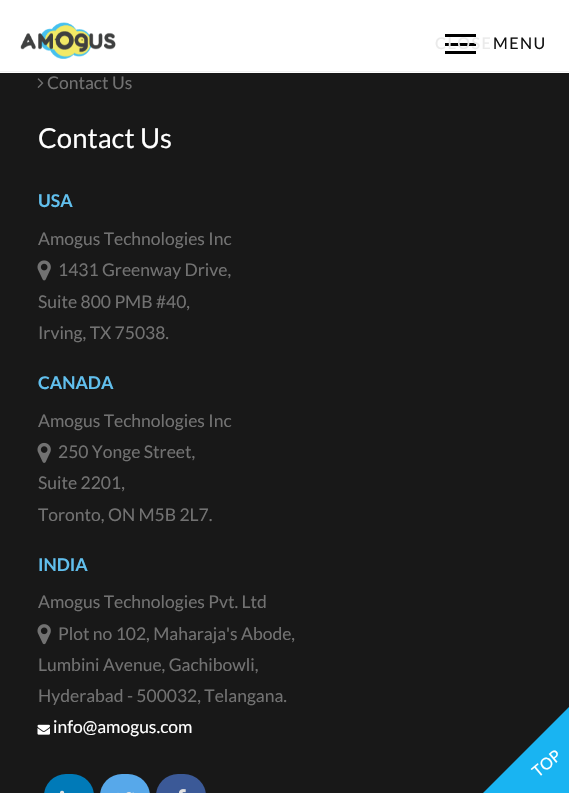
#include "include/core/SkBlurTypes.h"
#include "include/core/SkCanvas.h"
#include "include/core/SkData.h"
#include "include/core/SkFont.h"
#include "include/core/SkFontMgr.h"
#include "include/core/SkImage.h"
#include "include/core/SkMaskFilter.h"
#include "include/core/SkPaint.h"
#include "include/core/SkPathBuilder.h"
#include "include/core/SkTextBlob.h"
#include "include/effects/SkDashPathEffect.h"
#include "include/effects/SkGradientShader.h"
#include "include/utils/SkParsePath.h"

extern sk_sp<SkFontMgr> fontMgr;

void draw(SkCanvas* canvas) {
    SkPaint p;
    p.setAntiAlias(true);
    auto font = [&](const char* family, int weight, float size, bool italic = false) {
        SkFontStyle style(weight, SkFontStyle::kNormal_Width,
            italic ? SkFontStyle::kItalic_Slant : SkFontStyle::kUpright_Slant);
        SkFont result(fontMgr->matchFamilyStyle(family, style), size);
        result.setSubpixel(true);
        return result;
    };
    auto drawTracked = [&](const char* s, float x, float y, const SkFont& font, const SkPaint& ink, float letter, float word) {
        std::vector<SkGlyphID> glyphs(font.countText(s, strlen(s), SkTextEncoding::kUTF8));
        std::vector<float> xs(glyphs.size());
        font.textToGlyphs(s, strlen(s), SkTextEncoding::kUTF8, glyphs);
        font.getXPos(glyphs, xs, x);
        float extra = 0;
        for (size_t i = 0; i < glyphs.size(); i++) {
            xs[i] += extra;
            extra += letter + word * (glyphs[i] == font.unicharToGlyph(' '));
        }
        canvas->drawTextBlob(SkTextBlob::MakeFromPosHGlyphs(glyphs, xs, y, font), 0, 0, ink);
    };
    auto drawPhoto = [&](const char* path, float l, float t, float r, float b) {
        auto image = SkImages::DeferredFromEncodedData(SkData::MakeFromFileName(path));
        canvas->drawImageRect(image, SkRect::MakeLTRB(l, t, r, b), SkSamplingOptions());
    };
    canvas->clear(0xFF181818);
    p.setColor(0xFFFFFFFF);
    canvas->drawRect(SkRect::MakeLTRB(0, 0, 569, 73), p);
    p.setColor(0xFFF1F1F1);
    canvas->drawRect(SkRect::MakeLTRB(0, 71, 569, 72), p);
    drawPhoto("media/1.png", 20, 22, 116, 59);
    {
        const struct { float l, t, r, b; SkColor color; } items[] = {
            {445, 34, 476, 37, 0xFF000000},
            {445, 43, 476, 46, 0xFF000000},
            {445, 51, 476, 54, 0xFF000000},
        };
        for (auto [l, t, r, b, color] : items) {
            p.setColor(color);
            canvas->drawRect(SkRect::MakeLTRB(l, t, r, b), p);
        }
    }
    auto font1 = font("Lato", 400, 16);
    p.setColor(0xFFEAEAEA);
    drawTracked("CLOSE", 435, 49, font1, p, 1.5f, 0);
    p.setColor(0xFF111111);
    drawTracked("MENU", 493, 49, font1, p, 1.5f, 0);
    drawPhoto("media/2.png", 37, 78, 44, 88);
    auto font2 = font("Lato", 400, 17.5f);
    p.setColor(0xFF727272);
    canvas->drawString("Contact Us", 47, 89, font2, p);
    auto font3 = font("Lato", 400, 27.5f);
    p.setColor(0xFFFFFFFF);
    canvas->drawString("Contact Us", 38, 148, font3, p);
    auto font4 = font("Lato", 700, 17.5f);
    p.setColor(0xFF61BFED);
    canvas->drawString("USA", 38, 207, font4, p);
    p.setColor(0xFF727272);
    canvas->drawString("Amogus Technologies Inc", 38, 245, font2, p);
    drawPhoto("media/3.png", 37, 260, 51, 281);
    {
        const struct { const char* s; float x, y; } items[] = {
            {"1431 Greenway Drive,", 58, 276},
            {"Suite 800 PMB #40,", 38, 308},
            {"Irving, TX 75038.", 38, 339},
        };
        for (auto [s, x, y] : items) {
            canvas->drawString(s, x, y, font2, p);
        }
    }
    p.setColor(0xFF61BFED);
    canvas->drawString("CANADA", 38, 389, font4, p);
    p.setColor(0xFF727272);
    canvas->drawString("Amogus Technologies Inc", 38, 427, font2, p);
    drawPhoto("media/4.png", 37, 442, 51, 463);
    {
        const struct { const char* s; float x, y; } items[] = {
            {"250 Yonge Street,", 58, 458},
            {"Suite 2201,", 38, 489},
            {"Toronto, ON M5B 2L7.", 38, 521},
        };
        for (auto [s, x, y] : items) {
            canvas->drawString(s, x, y, font2, p);
        }
    }
    p.setColor(0xFF61BFED);
    canvas->drawString("INDIA", 38, 571, font4, p);
    p.setColor(0xFF727272);
    canvas->drawString("Amogus Technologies Pvt. Ltd", 38, 608, font2, p);
    drawPhoto("media/5.png", 37, 624, 51, 645);
    {
        const struct { const char* s; float x, y; } items[] = {
            {"Plot no 102, Maharaja's Abode,", 58, 640},
            {"Lumbini Avenue, Gachibowli,", 38, 671},
            {"Hyderabad - 500032, Telangana.", 38, 702},
        };
        for (auto [s, x, y] : items) {
            canvas->drawString(s, x, y, font2, p);
        }
    }
    drawPhoto("media/6.png", 37, 724, 50, 735);
    p.setColor(0xFFFFFFFF);
    canvas->drawString("info@amogus.com", 53, 733, font2, p);
    p.setColor(0xFF007AB8);
    canvas->drawRoundRect(SkRect::MakeLTRB(44, 774, 94, 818), 25, 25, p);
    drawPhoto("media/7.png", 60, 790, 65, 793);
    p.setColor(0xFF57A8EA);
    canvas->drawRoundRect(SkRect::MakeLTRB(100, 774, 150, 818), 25, 25, p);
    drawPhoto("media/8.png", 117, 792, 134, 793);
    p.setColor(0xFF3B5997);
    canvas->drawRoundRect(SkRect::MakeLTRB(156, 774, 206, 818), 25, 25, p);
    drawPhoto("media/9.png", 179, 789, 186, 793);
    p.setColor(0xFF19B4F2);
    canvas->drawPath(SkPathBuilder().moveTo(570, 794).lineTo(482, 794).lineTo(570, 706).close().detach(), p);
    p.setColor(0xFFFFFFFF);
    canvas->save();
    canvas->rotate(-40, 538, 778);
    canvas->drawString("TOP", 538, 778, font1, p);
    canvas->restore();
}
